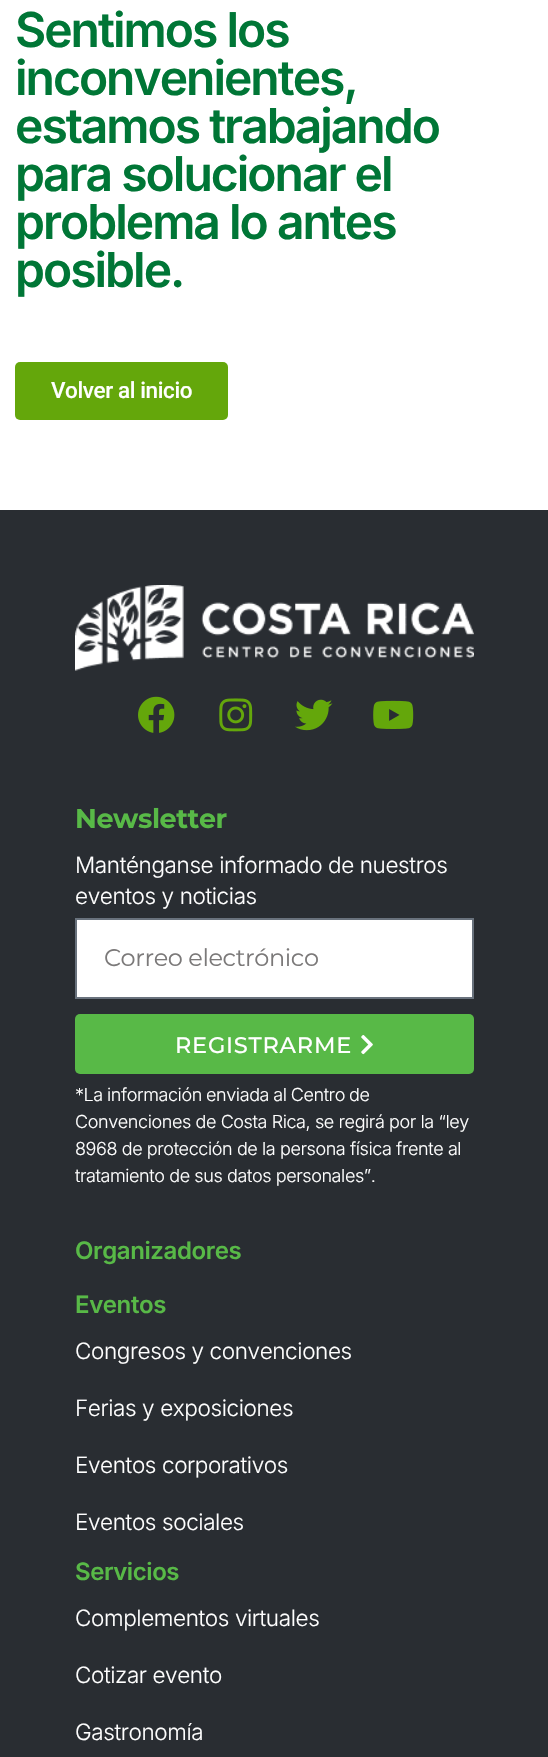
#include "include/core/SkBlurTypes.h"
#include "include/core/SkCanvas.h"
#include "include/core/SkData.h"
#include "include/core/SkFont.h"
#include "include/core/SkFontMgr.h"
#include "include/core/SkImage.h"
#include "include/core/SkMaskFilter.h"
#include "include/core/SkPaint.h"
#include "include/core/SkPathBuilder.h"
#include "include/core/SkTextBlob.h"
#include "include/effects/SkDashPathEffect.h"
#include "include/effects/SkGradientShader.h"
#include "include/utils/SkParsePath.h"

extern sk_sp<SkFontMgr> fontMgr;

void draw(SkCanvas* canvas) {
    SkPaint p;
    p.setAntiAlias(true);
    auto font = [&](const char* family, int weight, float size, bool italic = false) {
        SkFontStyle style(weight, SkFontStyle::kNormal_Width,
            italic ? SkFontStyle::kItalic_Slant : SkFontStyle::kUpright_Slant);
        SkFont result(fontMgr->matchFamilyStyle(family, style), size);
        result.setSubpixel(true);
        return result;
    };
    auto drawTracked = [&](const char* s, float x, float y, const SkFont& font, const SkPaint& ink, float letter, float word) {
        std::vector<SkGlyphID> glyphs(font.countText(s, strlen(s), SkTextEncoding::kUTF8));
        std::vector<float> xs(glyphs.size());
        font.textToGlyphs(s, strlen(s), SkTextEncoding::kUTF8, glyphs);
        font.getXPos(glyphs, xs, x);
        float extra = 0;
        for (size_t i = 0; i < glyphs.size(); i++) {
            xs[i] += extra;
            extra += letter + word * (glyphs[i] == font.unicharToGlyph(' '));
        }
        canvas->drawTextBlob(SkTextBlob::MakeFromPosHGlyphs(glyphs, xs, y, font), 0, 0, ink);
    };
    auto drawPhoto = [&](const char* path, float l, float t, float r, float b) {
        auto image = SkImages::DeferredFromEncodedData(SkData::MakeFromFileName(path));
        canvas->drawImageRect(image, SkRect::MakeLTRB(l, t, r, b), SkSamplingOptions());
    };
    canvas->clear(0xFFFFFFFF);
    auto font1 = font("Inter", 600, 48);
    p.setColor(0xFF007636);
    {
        const struct { const char* s; float x, y; } items[] = {
            {"Sentimos los", 15, 47},
            {"inconvenientes,", 15, 95},
            {"estamos trabajando", 15, 143},
            {"para solucionar el", 15, 191},
            {"problema lo antes", 15, 239},
            {"posible.", 15, 287},
        };
        for (auto [s, x, y] : items) {
            drawTracked(s, x, y, font1, p, -2, 0);
        }
    }
    p.setColor(0xFF64A70B);
    canvas->drawRoundRect(SkRect::MakeLTRB(15, 362, 228, 420), 5, 5, p);
    auto font2 = font("Roboto", 500, 22.5f);
    p.setColor(0xFFFFFFFF);
    drawTracked("Volver al inicio", 51, 398, font2, p, -0.4f, 0);
    p.setColor(0xFF292D32);
    canvas->drawRect(SkRect::MakeLTRB(0, 510, 548, 1757), p);
    drawPhoto("media/1.png", 75, 585, 474, 671);
    drawPhoto("media/2.png", 138, 696, 175, 733);
    drawPhoto("media/3.png", 219, 698, 253, 732);
    drawPhoto("media/4.png", 295, 699, 333, 731);
    drawPhoto("media/5.png", 373, 700, 414, 729);
    auto font3 = font("Montserrat", 700, 27);
    p.setColor(0xFF58B947);
    drawTracked("Newsletter", 75, 828, font3, p, -0.4f, 0);
    auto font4 = font("Inter", 300, 22.5f);
    p.setColor(0xFFFFFFFF);
    drawTracked("Manténganse informado de nuestros", 75, 873, font4, p, -0.4f, 0);
    drawTracked("eventos y noticias", 75, 904, font4, p, -0.4f, 0);
    canvas->drawRect(SkRect::MakeLTRB(76, 919, 473, 998), p);
    p.setStyle(SkPaint::kStroke_Style);
    p.setStrokeWidth(2);
    p.setColor(0xFF69727D);
    canvas->drawRect(SkRect::MakeLTRB(76, 919, 473, 998), p);
    auto font5 = font("Montserrat", 400, 24);
    p.setStyle(SkPaint::kFill_Style);
    p.setColor(0xFF7B7979);
    drawTracked("Correo electrónico", 104, 966, font5, p, -0.4f, 0);
    p.setColor(0xFF58B947);
    canvas->drawRoundRect(SkRect::MakeLTRB(75, 1014, 474, 1074), 5, 5, p);
    auto font6 = font("Montserrat", 500, 22.5f);
    p.setColor(0xFFFFFFFF);
    drawTracked("REGISTRARME", 175, 1053, font6, p, 0.75f, 0);
    drawPhoto("media/6.png", 361, 1035, 373, 1055);
    auto font7 = font("Inter", 300, 18);
    drawTracked("*La información enviada al Centro de", 75, 1101, font7, p, -0.4f, -0.5f);
    {
        const struct { const char* s; float x, y; } items[] = {
            {"Convenciones de Costa Rica, se regirá por la “ley", 75, 1128},
            {"8968 de protección de la persona física frente al", 75, 1155},
            {"tratamiento de sus datos personales”.", 75, 1182},
        };
        for (auto [s, x, y] : items) {
            drawTracked(s, x, y, font7, p, -0.4f, 0);
        }
    }
    auto font8 = font("Inter", 600, 24);
    p.setColor(0xFF58B947);
    drawTracked("Organizadores", 75, 1259, font8, p, -0.4f, 0);
    drawTracked("Eventos", 75, 1313, font8, p, -0.4f, 0);
    p.setColor(0xFFFFFFFF);
    {
        const struct { const char* s; float x, y; } items[] = {
            {"Congresos y convenciones", 75, 1359},
            {"Ferias y exposiciones", 75, 1416},
            {"Eventos corporativos", 75, 1473},
            {"Eventos sociales", 75, 1530},
        };
        for (auto [s, x, y] : items) {
            drawTracked(s, x, y, font4, p, -0.4f, 0);
        }
    }
    p.setColor(0xFF58B947);
    drawTracked("Servicios", 75, 1580, font8, p, -0.4f, 0);
    p.setColor(0xFFFFFFFF);
    {
        const struct { const char* s; float x, y; } items[] = {
            {"Complementos virtuales", 75, 1626},
            {"Cotizar evento", 75, 1683},
            {"Gastronomía", 75, 1740},
        };
        for (auto [s, x, y] : items) {
            drawTracked(s, x, y, font4, p, -0.4f, 0);
        }
    }
}
